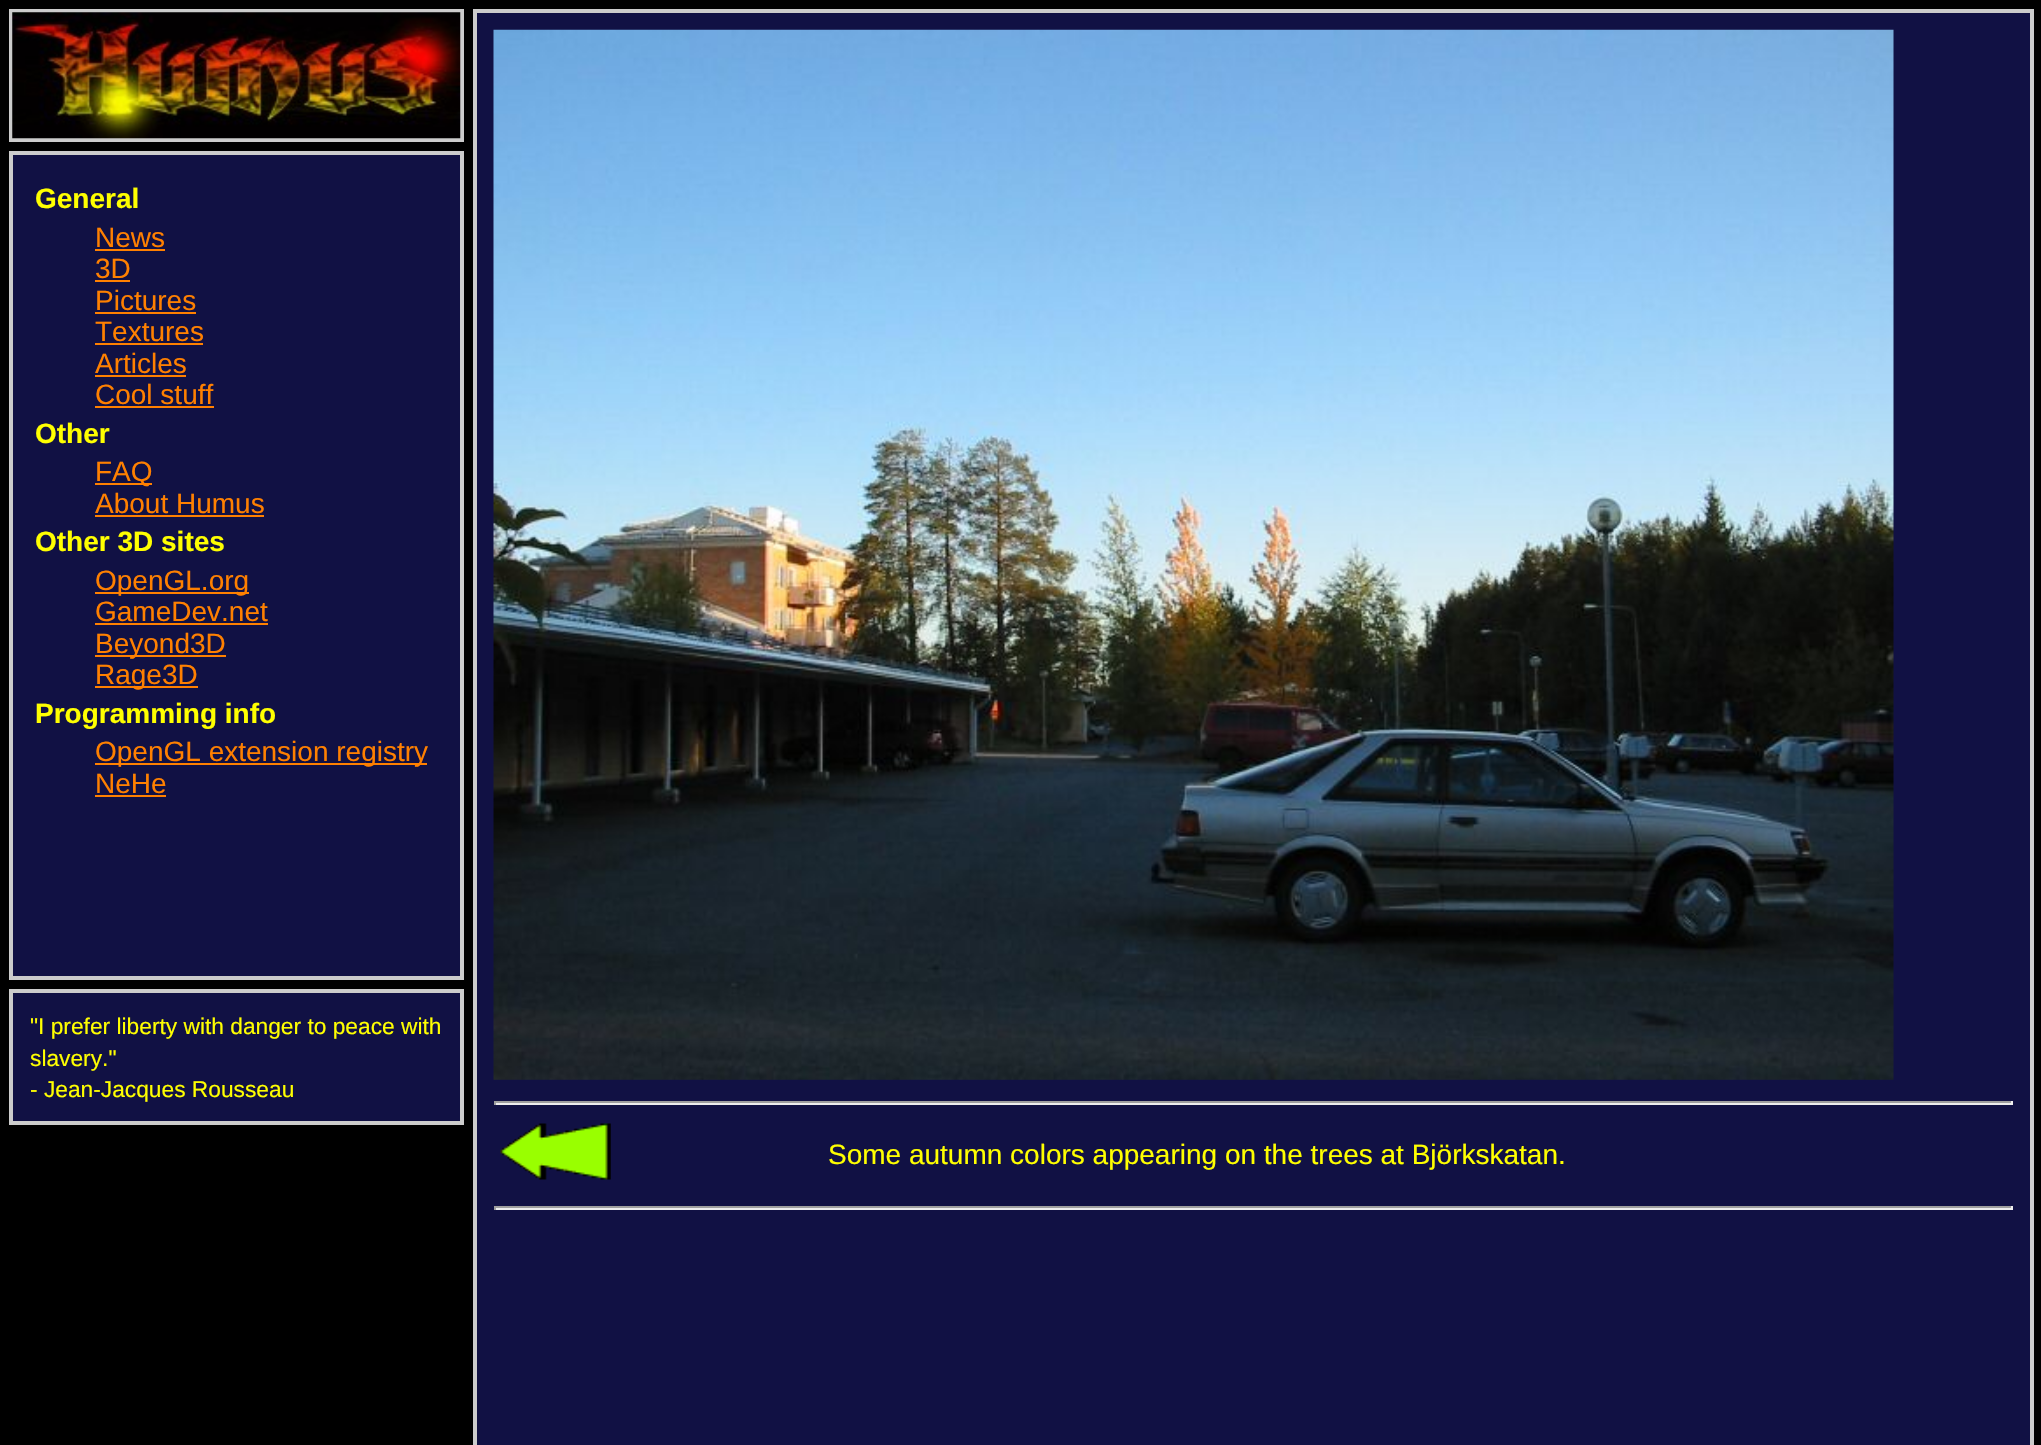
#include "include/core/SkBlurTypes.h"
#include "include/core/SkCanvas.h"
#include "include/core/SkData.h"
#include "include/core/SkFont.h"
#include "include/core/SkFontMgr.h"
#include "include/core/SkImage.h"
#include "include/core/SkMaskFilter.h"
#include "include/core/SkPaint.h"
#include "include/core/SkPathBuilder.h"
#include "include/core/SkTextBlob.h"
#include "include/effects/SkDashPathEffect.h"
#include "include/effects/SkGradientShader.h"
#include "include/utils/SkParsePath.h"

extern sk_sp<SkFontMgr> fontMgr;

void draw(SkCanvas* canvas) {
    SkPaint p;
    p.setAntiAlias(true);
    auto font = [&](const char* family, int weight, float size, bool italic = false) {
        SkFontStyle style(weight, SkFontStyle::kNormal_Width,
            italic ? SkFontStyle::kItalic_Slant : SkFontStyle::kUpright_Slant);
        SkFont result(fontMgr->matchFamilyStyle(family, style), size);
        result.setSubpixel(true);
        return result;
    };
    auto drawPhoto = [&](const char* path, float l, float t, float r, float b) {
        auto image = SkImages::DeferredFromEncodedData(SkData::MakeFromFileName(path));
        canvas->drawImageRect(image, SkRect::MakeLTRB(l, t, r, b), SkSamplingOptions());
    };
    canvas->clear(0xFF000000);
    p.setStyle(SkPaint::kStroke_Style);
    p.setStrokeWidth(4);
    p.setColor(0xFFCCCCCC);
    canvas->drawRect(SkRect::MakeLTRB(11, 11, 462, 140), p);
    drawPhoto("media/1.png", 12, 12, 461, 139);
    p.setStyle(SkPaint::kFill_Style);
    p.setColor(0xFF111144);
    canvas->drawRect(SkRect::MakeLTRB(11, 153, 462, 978), p);
    p.setStyle(SkPaint::kStroke_Style);
    p.setColor(0xFFCCCCCC);
    canvas->drawRect(SkRect::MakeLTRB(11, 153, 462, 978), p);
    auto font1 = font("Liberation Sans", 700, 28);
    p.setStyle(SkPaint::kFill_Style);
    p.setColor(0xFFFFFF00);
    canvas->drawString("General", 35, 208, font1, p);
    auto font2 = font("Liberation Sans", 400, 28);
    p.setColor(0xFFFF8000);
    canvas->drawString("News", 95, 247, font2, p);
    canvas->drawRect(SkRect::MakeLTRB(95, 249, 165, 251), p);
    canvas->drawString("3D", 95, 278, font2, p);
    canvas->drawRect(SkRect::MakeLTRB(95, 280, 130, 282), p);
    canvas->drawString("Pictures", 95, 310, font2, p);
    canvas->drawRect(SkRect::MakeLTRB(95, 312, 196, 314), p);
    canvas->drawString("Textures", 95, 341, font2, p);
    canvas->drawRect(SkRect::MakeLTRB(95, 343, 203, 345), p);
    canvas->drawString("Articles", 95, 373, font2, p);
    canvas->drawRect(SkRect::MakeLTRB(95, 375, 186, 377), p);
    canvas->drawString("Cool stuff", 95, 404, font2, p);
    canvas->drawRect(SkRect::MakeLTRB(95, 406, 214, 408), p);
    p.setColor(0xFFFFFF00);
    canvas->drawString("Other", 35, 443, font1, p);
    p.setColor(0xFFFF8000);
    canvas->drawRect(SkRect::MakeLTRB(95, 483, 152, 485), p);
    canvas->drawString("FAQ", 95, 481, font2, p);
    canvas->drawString("About Humus", 95, 513, font2, p);
    canvas->drawRect(SkRect::MakeLTRB(95, 515, 264, 517), p);
    p.setColor(0xFFFFFF00);
    canvas->drawString("Other 3D sites", 35, 551, font1, p);
    p.setColor(0xFFFF8000);
    canvas->drawRect(SkRect::MakeLTRB(95, 592, 249, 594), p);
    canvas->drawString("OpenGL.org", 95, 590, font2, p);
    canvas->drawString("GameDev.net", 95, 621, font2, p);
    canvas->drawRect(SkRect::MakeLTRB(95, 623, 268, 625), p);
    canvas->drawRect(SkRect::MakeLTRB(95, 655, 226, 657), p);
    canvas->drawString("Beyond3D", 95, 653, font2, p);
    canvas->drawRect(SkRect::MakeLTRB(95, 686, 198, 688), p);
    canvas->drawString("Rage3D", 95, 684, font2, p);
    p.setColor(0xFFFFFF00);
    canvas->drawString("Programming info", 35, 723, font1, p);
    p.setColor(0xFFFF8000);
    canvas->drawRect(SkRect::MakeLTRB(95, 763, 427, 765), p);
    canvas->drawString("OpenGL extension registry", 95, 761, font2, p);
    canvas->drawString("NeHe", 95, 793, font2, p);
    canvas->drawRect(SkRect::MakeLTRB(95, 795, 166, 797), p);
    p.setColor(0xFF111144);
    canvas->drawRect(SkRect::MakeLTRB(11, 991, 462, 1123), p);
    p.setStyle(SkPaint::kStroke_Style);
    p.setColor(0xFFCCCCCC);
    canvas->drawRect(SkRect::MakeLTRB(11, 991, 462, 1123), p);
    auto font3 = font("Liberation Sans", 400, 22.75f);
    p.setStyle(SkPaint::kFill_Style);
    p.setColor(0xFFFFFF00);
    {
        const struct { const char* s; float x, y; } items[] = {
            {"\"I prefer liberty with danger to peace with", 30, 1034},
            {"slavery.\"", 30, 1066},
            {"- Jean-Jacques Rousseau", 30, 1097},
        };
        for (auto [s, x, y] : items) {
            canvas->drawString(s, x, y, font3, p);
        }
    }
    p.setColor(0xFF111144);
    canvas->drawRect(SkRect::MakeLTRB(475, 11, 2032, 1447), p);
    p.setStyle(SkPaint::kStroke_Style);
    p.setColor(0xFFCCCCCC);
    canvas->drawRect(SkRect::MakeLTRB(475, 11, 2032, 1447), p);
    drawPhoto("media/2.png", 493, 29, 1894, 1080);
    p.setStyle(SkPaint::kFill_Style);
    {
        const struct { float l, t, r, b; SkColor color; } items[] = {
            {494, 1101, 2013, 1103, 0xFF9F9F9F},
            {2011, 1101, 2013, 1105, 0xFFEEEEEE},
            {494, 1103, 2013, 1105, 0xFFEEEEEE},
            {494, 1101, 496, 1105, 0xFF9F9F9F},
        };
        for (auto [l, t, r, b, color] : items) {
            p.setColor(color);
            canvas->drawRect(SkRect::MakeLTRB(l, t, r, b), p);
        }
    }
    drawPhoto("media/3.png", 500, 1123, 611, 1180);
    p.setColor(0xFFFFFF00);
    canvas->drawString("Some autumn colors appearing on the trees at Björkskatan.", 828, 1164, font2, p);
    {
        const struct { float l, t, r, b; SkColor color; } items[] = {
            {494, 1206, 2013, 1208, 0xFF9F9F9F},
            {2011, 1206, 2013, 1210, 0xFFEEEEEE},
            {494, 1208, 2013, 1210, 0xFFEEEEEE},
            {494, 1206, 496, 1210, 0xFF9F9F9F},
        };
        for (auto [l, t, r, b, color] : items) {
            p.setColor(color);
            canvas->drawRect(SkRect::MakeLTRB(l, t, r, b), p);
        }
    }
}
